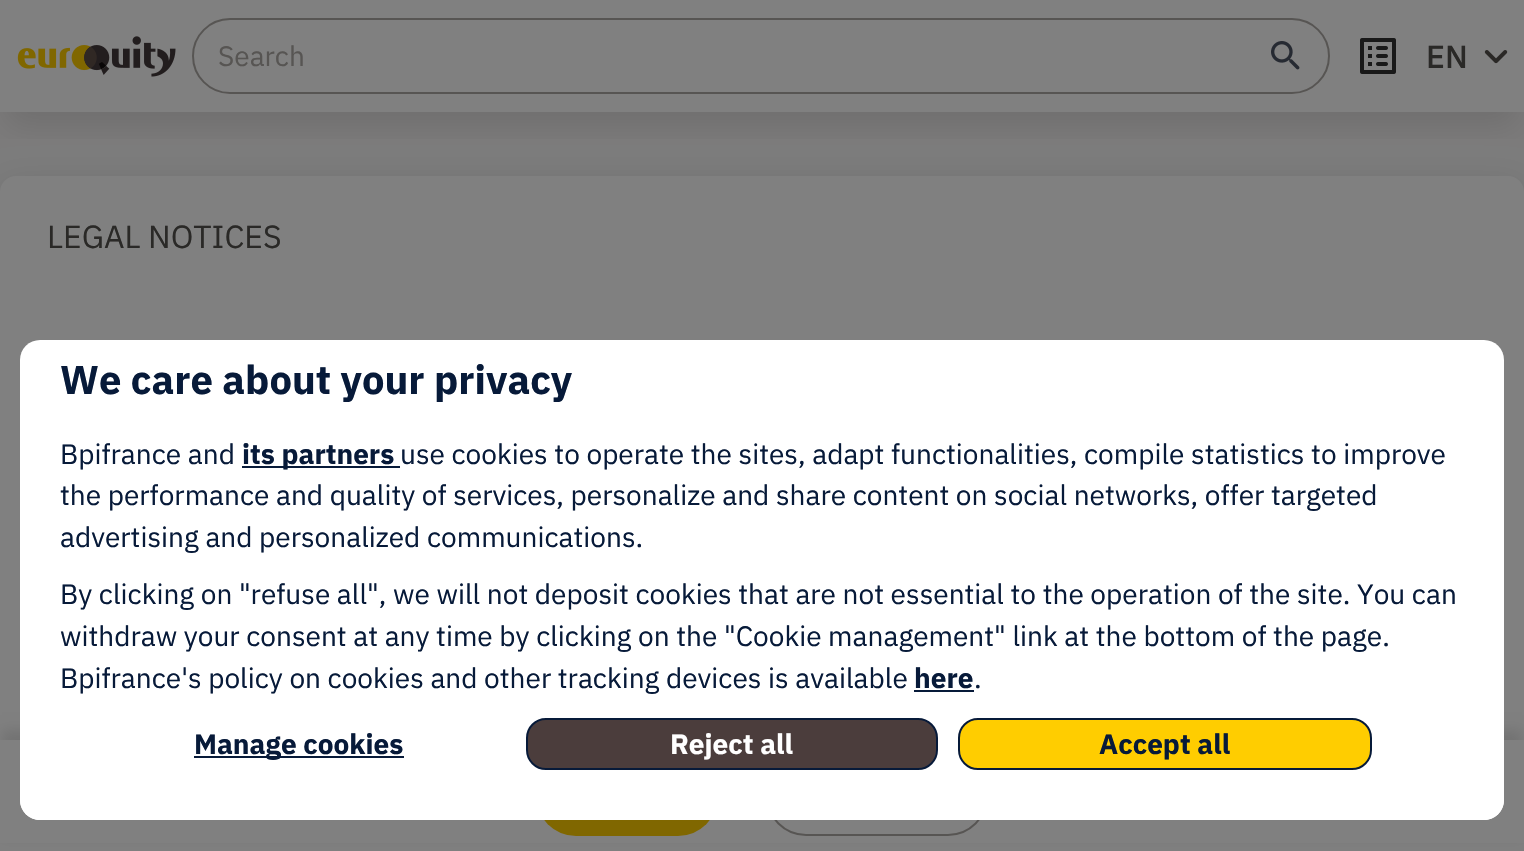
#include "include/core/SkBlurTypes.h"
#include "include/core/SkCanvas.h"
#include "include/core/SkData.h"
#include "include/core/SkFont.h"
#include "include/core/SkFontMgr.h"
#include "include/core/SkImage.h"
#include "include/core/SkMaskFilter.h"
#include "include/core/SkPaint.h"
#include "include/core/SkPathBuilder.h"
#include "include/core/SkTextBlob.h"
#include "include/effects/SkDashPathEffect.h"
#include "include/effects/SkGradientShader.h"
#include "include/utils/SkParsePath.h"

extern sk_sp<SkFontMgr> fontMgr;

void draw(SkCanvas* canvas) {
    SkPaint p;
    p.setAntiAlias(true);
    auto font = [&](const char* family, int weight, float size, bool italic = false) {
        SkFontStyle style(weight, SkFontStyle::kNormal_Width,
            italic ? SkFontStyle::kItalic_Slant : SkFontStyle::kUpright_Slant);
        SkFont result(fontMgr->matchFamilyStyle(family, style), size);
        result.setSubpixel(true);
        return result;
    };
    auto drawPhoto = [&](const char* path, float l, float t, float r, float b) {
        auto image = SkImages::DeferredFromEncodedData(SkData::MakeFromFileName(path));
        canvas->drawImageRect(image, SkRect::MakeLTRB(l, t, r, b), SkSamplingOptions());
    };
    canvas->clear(0xFF7C7B7B);
    p.setColor(0xFF808080);
    canvas->drawRect(SkRect::MakeLTRB(0, 0, 1524, 112), p);
    canvas->save();
    canvas->clipRect(SkRect::MakeLTRB(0, 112, 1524, 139));
    p.setColor(0x1A000000);
    p.setMaskFilter(SkMaskFilter::MakeBlur(kNormal_SkBlurStyle, 15));
    canvas->drawRect(SkRect::MakeLTRB(6, 26, 1518, 126), p);
    p.setMaskFilter(nullptr);
    canvas->restore();
    drawPhoto("media/1.png", 17, 36, 176, 77);
    p.setStyle(SkPaint::kStroke_Style);
    p.setStrokeWidth(2);
    p.setColor(0xFF575553);
    canvas->drawRoundRect(SkRect::MakeLTRB(193, 19, 1329, 93), 37, 37, p);
    auto font1 = font("IBM Plex Sans", 400, 28);
    p.setStyle(SkPaint::kFill_Style);
    canvas->drawString("Search", 218, 66, font1, p);
    drawPhoto("media/2.png", 1271, 41, 1300, 70);
    drawPhoto("media/3.png", 1360, 38, 1396, 74);
    auto font2 = font("IBM Plex Sans", 500, 32);
    p.setColor(0xFF2A2927);
    canvas->drawString("EN", 1426, 68, font2, p);
    drawPhoto("media/4.png", 1484, 50, 1508, 64);
    p.setColor(0x1A01060E);
    p.setMaskFilter(SkMaskFilter::MakeBlur(kNormal_SkBlurStyle, 16));
    canvas->drawRoundRect(SkRect::MakeLTRB(0, 184, 1524, 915), 16, 16, p);
    p.setMaskFilter(nullptr);
    p.setColor(0xFF808080);
    canvas->drawRoundRect(SkRect::MakeLTRB(0, 176, 1524, 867), 16, 16, p);
    auto font3 = font("IBM Plex Sans", 400, 32);
    p.setColor(0xFF2A2927);
    canvas->drawString("LEGAL NOTICES", 47, 248, font3, p);
    p.setColor(0x1A000000);
    p.setMaskFilter(SkMaskFilter::MakeBlur(kNormal_SkBlurStyle, 6));
    canvas->drawRect(SkRect::MakeLTRB(2, 730, 1522, 838), p);
    p.setMaskFilter(nullptr);
    p.setColor(0xFF808080);
    canvas->drawRect(SkRect::MakeLTRB(0, 740, 1524, 843), p);
    p.setColor(0xFF806700);
    canvas->drawRoundRect(SkRect::MakeLTRB(536, 756, 718, 836), 40, 40, p);
    p.setStyle(SkPaint::kStroke_Style);
    p.setColor(0xFF575553);
    canvas->drawRoundRect(SkRect::MakeLTRB(767, 757, 987, 835), 39, 39, p);
    p.setStyle(SkPaint::kFill_Style);
    p.setColor(0xFFFFFFFF);
    canvas->drawRoundRect(SkRect::MakeLTRB(20, 340, 1504, 820), 20, 20, p);
    auto font4 = font("IBM Plex Sans", 700, 40);
    p.setColor(0xFF071A39);
    canvas->drawString("We care about your privacy", 60, 394, font4, p);
    canvas->drawString("Bpifrance and", 60, 464, font1, p);
    canvas->drawRect(SkRect::MakeLTRB(242, 466, 400, 468), p);
    auto font5 = font("IBM Plex Sans", 700, 28);
    canvas->drawString("its partners", 242, 464, font5, p);
    {
        const struct { const char* s; float x, y; } items[] = {
            {"use cookies to operate the sites, adapt functionalities, compile statistics to improve", 400, 464},
            {"the performance and quality of services, personalize and share content on social networks, offer targeted", 60, 505},
            {"advertising and personalized communications.", 60, 547},
            {"By clicking on \"refuse all\", we will not deposit cookies that are not essential to the operation of the site. You can", 60, 604},
            {"withdraw your consent at any time by clicking on the \"Cookie management\" link at the bottom of the page.", 60, 646},
            {"Bpifrance's policy on cookies and other tracking devices is available", 60, 688},
        };
        for (auto [s, x, y] : items) {
            canvas->drawString(s, x, y, font1, p);
        }
    }
    canvas->drawString("here", 914, 688, font5, p);
    canvas->drawRect(SkRect::MakeLTRB(914, 690, 974, 692), p);
    canvas->drawString(".", 974, 688, font1, p);
    {
        const SkColor colors[] = {0xFFFFFFFF, 0x00FFFFFF};
        const float stops[] = {0.6f, 1};
        const SkPoint ends[] = {{762, 820}, {762, 708}};
        p.setShader(SkGradientShader::MakeLinear(ends, colors, stops, 2, SkTileMode::kClamp));
        p.setAlpha(255);
    }
    canvas->drawPath(SkPathBuilder().moveTo(20, 708).lineTo(1504, 708).lineTo(1504, 800).cubicTo(1504, 811, 1495, 820, 1484, 820).lineTo(40, 820).cubicTo(29, 820, 20, 811, 20, 800).close().detach(), p);
    p.setShader(nullptr);
    p.setColor(0xFF071A39);
    canvas->drawRect(SkRect::MakeLTRB(194, 756, 404, 758), p);
    canvas->drawString("Manage cookies", 194, 754, font5, p);
    p.setColor(0xFF4B3D3C);
    canvas->drawRoundRect(SkRect::MakeLTRB(527, 719, 937, 769), 19, 19, p);
    p.setStyle(SkPaint::kStroke_Style);
    p.setColor(0xFF071A39);
    canvas->drawRoundRect(SkRect::MakeLTRB(527, 719, 937, 769), 19, 19, p);
    p.setStyle(SkPaint::kFill_Style);
    p.setColor(0xFFFFFFFF);
    canvas->drawString("Reject all", 670, 754, font5, p);
    p.setColor(0xFFFFCD00);
    canvas->drawRoundRect(SkRect::MakeLTRB(959, 719, 1371, 769), 19, 19, p);
    p.setStyle(SkPaint::kStroke_Style);
    p.setColor(0xFF071A39);
    canvas->drawRoundRect(SkRect::MakeLTRB(959, 719, 1371, 769), 19, 19, p);
    p.setStyle(SkPaint::kFill_Style);
    canvas->drawString("Accept all", 1099, 754, font5, p);
}
